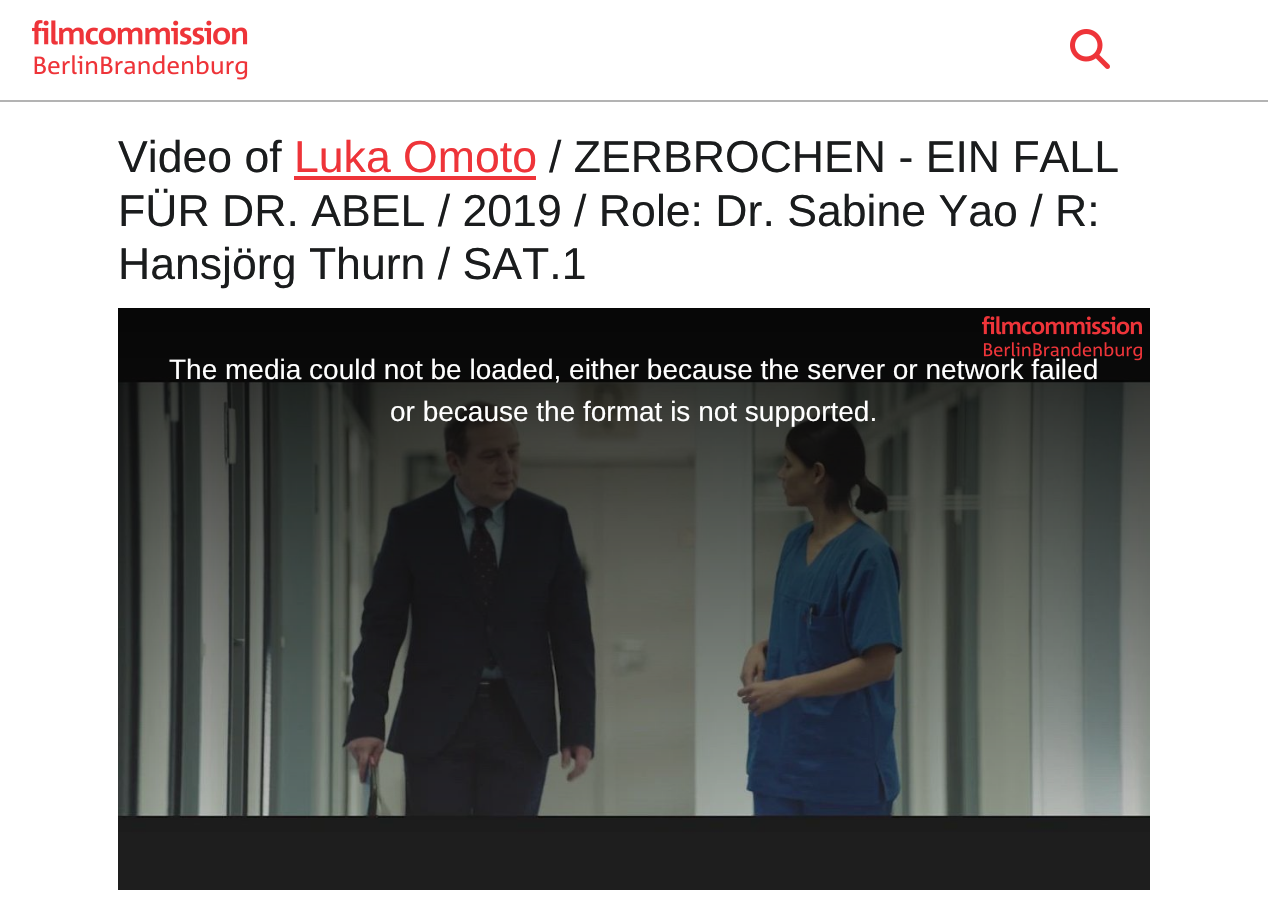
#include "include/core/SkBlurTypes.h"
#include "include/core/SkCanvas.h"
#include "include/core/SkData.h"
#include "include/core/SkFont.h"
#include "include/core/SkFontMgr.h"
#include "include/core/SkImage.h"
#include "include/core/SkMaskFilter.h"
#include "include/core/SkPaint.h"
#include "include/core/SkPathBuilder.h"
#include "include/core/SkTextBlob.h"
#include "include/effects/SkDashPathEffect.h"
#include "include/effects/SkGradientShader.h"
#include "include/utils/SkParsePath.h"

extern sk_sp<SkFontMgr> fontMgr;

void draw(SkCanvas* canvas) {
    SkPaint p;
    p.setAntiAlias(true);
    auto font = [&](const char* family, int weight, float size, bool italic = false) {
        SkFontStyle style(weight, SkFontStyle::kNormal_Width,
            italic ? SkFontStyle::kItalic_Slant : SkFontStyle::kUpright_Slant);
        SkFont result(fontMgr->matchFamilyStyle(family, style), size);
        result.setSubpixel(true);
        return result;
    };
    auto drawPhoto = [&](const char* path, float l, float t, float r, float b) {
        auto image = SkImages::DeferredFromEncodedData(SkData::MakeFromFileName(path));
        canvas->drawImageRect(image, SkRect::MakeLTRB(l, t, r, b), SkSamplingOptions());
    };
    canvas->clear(0xFFFFFFFF);
    p.setColor(0xFFB3B3B3);
    canvas->drawRect(SkRect::MakeLTRB(0, 100, 1268, 102), p);
    drawPhoto("media/1.png", 32, 20, 248, 80);
    drawPhoto("media/2.png", 1070, 29, 1110, 69);
    auto font1 = font("Liberation Sans", 400, 44.6f);
    p.setColor(0xFF1A1C1D);
    canvas->drawString("Video of", 118, 172, font1, p);
    p.setColor(0xFFEE3439);
    canvas->drawString("Luka Omoto", 294, 172, font1, p);
    canvas->drawRect(SkRect::MakeLTRB(294, 176, 536, 180), p);
    p.setColor(0xFF1A1C1D);
    {
        const struct { const char* s; float x, y; } items[] = {
            {"/ ZERBROCHEN - EIN FALL", 549, 172},
            {"FÜR DR. ABEL / 2019 / Role: Dr. Sabine Yao / R:", 118, 226},
            {"Hansjörg Thurn / SAT.1", 118, 279},
        };
        for (auto [s, x, y] : items) {
            canvas->drawString(s, x, y, font1, p);
        }
    }
    drawPhoto("media/3.png", 118, 308, 1150, 888);
    {
        const SkColor colors[] = {0xCC000000, 0x00000000};
        const float stops[] = {0, 1};
        const SkPoint ends[] = {{634, 308}, {634, 890}};
        p.setShader(SkGradientShader::MakeLinear(ends, colors, stops, 2, SkTileMode::kClamp));
        p.setAlpha(255);
    }
    canvas->drawRect(SkRect::MakeLTRB(118, 308, 1150, 832), p);
    drawPhoto("media/4.png", 982, 316, 1142, 361);
    auto font2 = font("Liberation Sans", 400, 28);
    p.setShader(nullptr);
    p.setColor(0xFFFFFFFF);
    canvas->drawString("The media could not be loaded, either because the server or network failed", 169, 379, font2, p);
    canvas->drawString("or because the format is not supported.", 390, 421, font2, p);
    p.setColor(0xFF1E1E1E);
    canvas->drawRect(SkRect::MakeLTRB(118, 888, 1150, 890), p);
}
